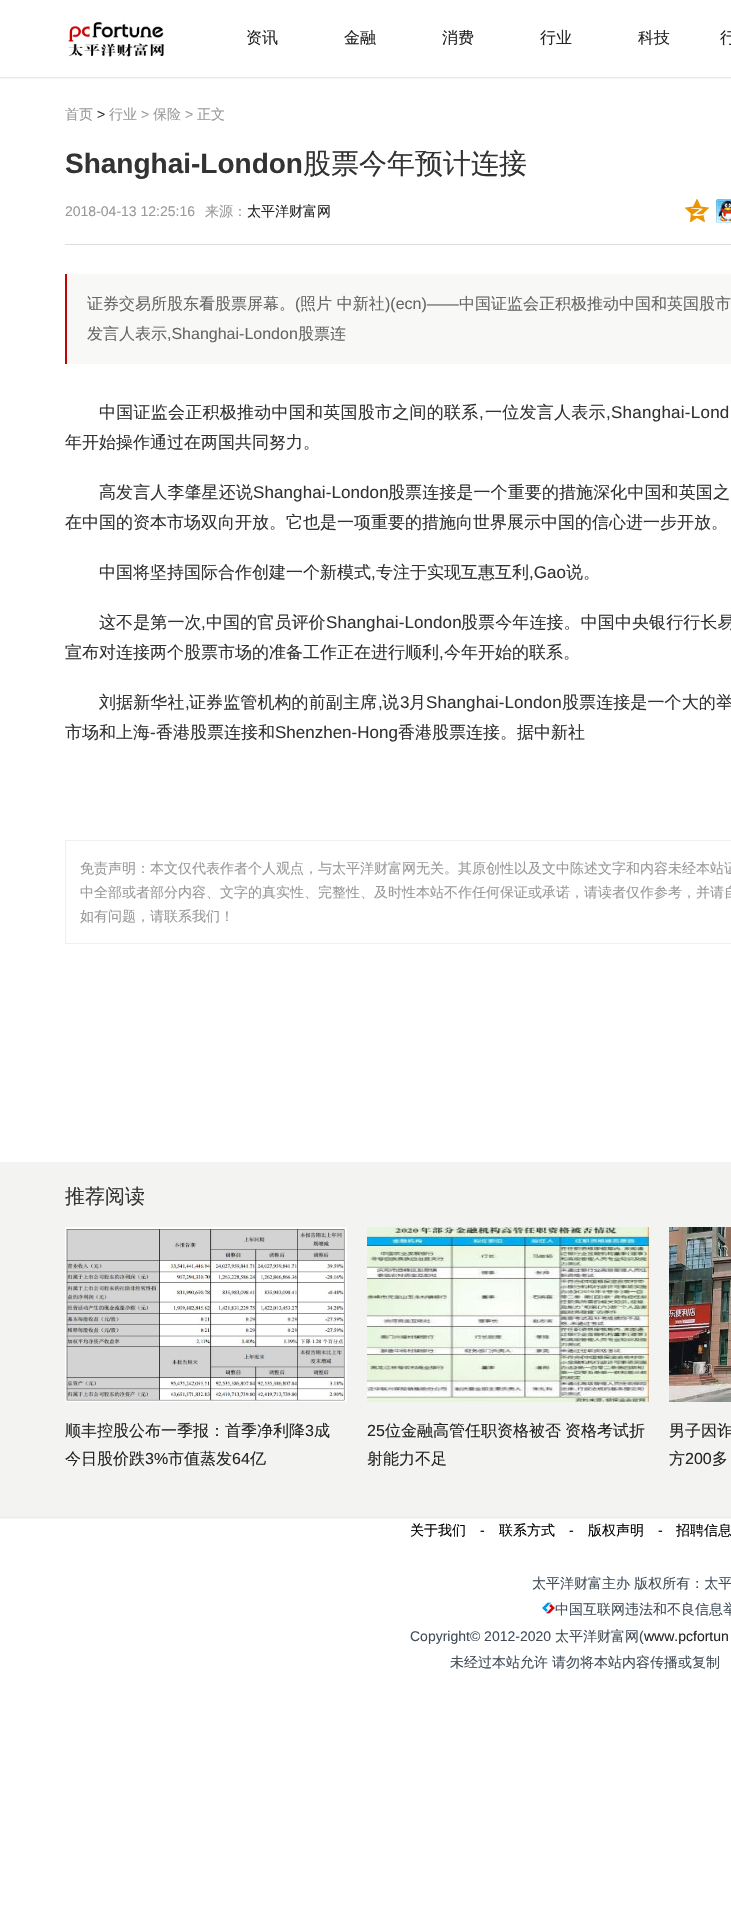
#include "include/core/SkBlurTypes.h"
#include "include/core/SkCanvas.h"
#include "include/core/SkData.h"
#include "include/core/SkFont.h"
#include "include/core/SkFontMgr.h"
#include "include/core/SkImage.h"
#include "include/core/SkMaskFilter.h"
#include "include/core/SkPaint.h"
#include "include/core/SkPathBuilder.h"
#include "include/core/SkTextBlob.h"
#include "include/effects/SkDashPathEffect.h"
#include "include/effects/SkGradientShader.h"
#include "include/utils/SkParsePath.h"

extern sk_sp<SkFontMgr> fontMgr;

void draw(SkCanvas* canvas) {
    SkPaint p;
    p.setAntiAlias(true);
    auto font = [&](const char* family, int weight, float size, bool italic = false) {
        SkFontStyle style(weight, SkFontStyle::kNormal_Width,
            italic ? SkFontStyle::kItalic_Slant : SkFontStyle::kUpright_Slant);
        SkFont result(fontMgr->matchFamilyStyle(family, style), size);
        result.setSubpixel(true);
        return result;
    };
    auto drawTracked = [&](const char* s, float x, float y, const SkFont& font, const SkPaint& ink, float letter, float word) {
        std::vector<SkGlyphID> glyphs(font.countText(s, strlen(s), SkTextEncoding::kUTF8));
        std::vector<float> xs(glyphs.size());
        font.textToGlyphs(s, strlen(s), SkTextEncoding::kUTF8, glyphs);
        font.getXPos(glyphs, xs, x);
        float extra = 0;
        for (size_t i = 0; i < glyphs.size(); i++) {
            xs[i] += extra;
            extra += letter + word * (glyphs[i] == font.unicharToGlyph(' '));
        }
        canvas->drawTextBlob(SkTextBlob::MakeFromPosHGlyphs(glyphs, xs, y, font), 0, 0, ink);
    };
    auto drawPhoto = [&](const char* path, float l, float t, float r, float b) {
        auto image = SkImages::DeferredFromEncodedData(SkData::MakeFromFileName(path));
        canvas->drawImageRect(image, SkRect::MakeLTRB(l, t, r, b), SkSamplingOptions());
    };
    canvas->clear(0xFFFFFFFF);
    drawPhoto("media/1.png", 0, 77, 731, 79);
    drawPhoto("media/2.png", 68, 21, 165, 57);
    auto font1 = font("WenQuanYi Zen Hei", 500, 16);
    p.setColor(0xFF252525);
    {
        const struct { const char* s; float x, y; } items[] = {
            {"资讯", 246, 43},
            {"金融", 344, 43},
            {"消费", 442, 43},
            {"行业", 540, 43},
            {"科技", 638, 43},
            {"行", 720, 43},
        };
        for (auto [s, x, y] : items) {
            canvas->drawString(s, x, y, font1, p);
        }
    }
    auto font2 = font("WenQuanYi Zen Hei", 500, 14);
    p.setColor(0xFF999999);
    canvas->drawString("首页", 65, 119, font2, p);
    auto font3 = font("Liberation Sans", 400, 14);
    p.setColor(0xFF333333);
    canvas->drawString(">", 97, 119, font3, p);
    p.setColor(0xFF999999);
    canvas->drawString("行业", 109, 119, font2, p);
    canvas->drawString(">", 141, 119, font3, p);
    canvas->drawString("保险", 153, 119, font2, p);
    canvas->drawString(">", 185, 119, font3, p);
    canvas->drawString("正文", 197, 119, font2, p);
    auto font4 = font("Liberation Sans", 700, 28);
    p.setColor(0xFF333333);
    canvas->drawString("Shanghai-London", 65, 173, font4, p);
    auto font5 = font("WenQuanYi Zen Hei", 500, 28);
    canvas->drawString("股票今年预计连接", 303, 173, font5, p);
    p.setColor(0xFFDDDDDD);
    canvas->drawRect(SkRect::MakeLTRB(65, 244, 731, 245), p);
    p.setColor(0xFF999999);
    canvas->drawString("2018-04-13 12:25:16", 65, 216, font3, p);
    canvas->drawString("来源：", 205, 216, font2, p);
    p.setColor(0xFF252525);
    canvas->drawString("太平洋财富网", 247, 216, font2, p);
    drawPhoto("media/3.png", 685, 199, 709, 222);
    drawPhoto("media/4.png", 716, 199, 731, 223);
    p.setColor(0xFFF8F8F7);
    canvas->drawRect(SkRect::MakeLTRB(67, 274, 731, 364), p);
    p.setColor(0xFFBF0505);
    canvas->drawRect(SkRect::MakeLTRB(65, 274, 67, 364), p);
    p.setColor(0xFF666666);
    canvas->drawString("证券交易所股东看股票屏幕。", 87, 309, font1, p);
    auto font6 = font("Liberation Sans", 400, 16);
    canvas->drawString("(", 295, 309, font6, p);
    canvas->drawString("照片 中新社", 300, 309, font1, p);
    canvas->drawString(")(ecn)——", 385, 309, font6, p);
    canvas->drawString("中国证监会正积极推动中国和英国股市", 459, 309, font1, p);
    canvas->drawString("发言人表示", 87, 339, font1, p);
    canvas->drawString(",Shanghai-London", 167, 339, font6, p);
    canvas->drawString("股票连", 298, 339, font1, p);
    auto font7 = font("WenQuanYi Zen Hei", 500, 17);
    p.setColor(0xFF333333);
    drawTracked("中国证监会正积极推动中国和英国股市之间的联系", 99, 418, font7, p, 0.25f, 0);
    auto font8 = font("Liberation Sans", 400, 17);
    drawTracked(",", 479, 418, font8, p, 0.25f, 0);
    drawTracked("一位发言人表示", 485, 418, font7, p, 0.25f, 0);
    drawTracked(",Shanghai-Lond", 606, 418, font8, p, 0.25f, 0);
    canvas->drawString("年开始操作通过在两国共同努力。", 65, 448, font7, p);
    drawTracked("高发言人李肇星还说", 99, 498, font7, p, 0.1f, 0);
    drawTracked("Shanghai-London", 253, 498, font8, p, 0.1f, 0);
    drawTracked("股票连接是一个重要的措施深化中国和英国之", 388, 498, font7, p, 0.1f, 0);
    canvas->drawString("在中国的资本市场双向开放。它也是一项重要的措施向世界展示中国的信心进一步开放。", 65, 528, font7, p);
    canvas->drawString("中国将坚持国际合作创建一个新模式", 99, 578, font7, p);
    canvas->drawString(",", 371, 578, font8, p);
    canvas->drawString("专注于实现互惠互利", 376, 578, font7, p);
    canvas->drawString(",Gao", 529, 578, font8, p);
    canvas->drawString("说。", 566, 578, font7, p);
    drawTracked("这不是第一次", 99, 628, font7, p, 0.1f, 0);
    drawTracked(",", 201, 628, font8, p, 0.1f, 0);
    drawTracked("中国的官员评价", 206, 628, font7, p, 0.1f, 0);
    drawTracked("Shanghai-London", 326, 628, font8, p, 0.1f, 0);
    drawTracked("股票今年连接。中国中央银行行长易", 461, 628, font7, p, 0.1f, 0);
    canvas->drawString("宣布对连接两个股票市场的准备工作正在进行顺利", 65, 658, font7, p);
    canvas->drawString(",", 439, 658, font8, p);
    canvas->drawString("今年开始的联系。", 444, 658, font7, p);
    drawTracked("刘据新华社", 99, 708, font7, p, 0.1f, 0);
    drawTracked(",", 185, 708, font8, p, 0.1f, 0);
    drawTracked("证券监管机构的前副主席", 189, 708, font7, p, 0.1f, 0);
    drawTracked(",", 378, 708, font8, p, 0.1f, 0);
    drawTracked("说", 382, 708, font7, p, 0.1f, 0);
    drawTracked("3", 400, 708, font8, p, 0.1f, 0);
    drawTracked("月", 409, 708, font7, p, 0.1f, 0);
    drawTracked("Shanghai-London", 426, 708, font8, p, 0.1f, 0);
    drawTracked("股票连接是一个大的举", 562, 708, font7, p, 0.1f, 0);
    canvas->drawString("市场和上海", 65, 738, font7, p);
    canvas->drawString("-", 150, 738, font8, p);
    canvas->drawString("香港股票连接和", 156, 738, font7, p);
    canvas->drawString("Shenzhen-Hong", 275, 738, font8, p);
    canvas->drawString("香港股票连接。据中新社", 398, 738, font7, p);
    p.setStyle(SkPaint::kStroke_Style);
    p.setStrokeWidth(1);
    p.setColor(0xFFEFEFEF);
    canvas->drawRect(SkRect::MakeLTRB(65.5f, 840.5f, 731.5f, 943.5f), p);
    p.setStyle(SkPaint::kFill_Style);
    p.setColor(0xFF999999);
    {
        const struct { const char* s; float x, y; } items[] = {
            {"免责声明：本文仅代表作者个人观点，与太平洋财富网无关。其原创性以及文中陈述文字和内容未经本站证", 80, 873},
            {"中全部或者部分内容、文字的真实性、完整性、及时性本站不作任何保证或承诺，请读者仅作参考，并请自", 80, 897},
            {"如有问题，请联系我们！", 80, 921},
        };
        for (auto [s, x, y] : items) {
            canvas->drawString(s, x, y, font2, p);
        }
    }
    p.setColor(0xFFF3F3F1);
    canvas->drawRect(SkRect::MakeLTRB(0, 1162, 731, 1517), p);
    auto font9 = font("WenQuanYi Zen Hei", 500, 20);
    p.setColor(0xFF333333);
    canvas->drawString("推荐阅读", 65, 1203, font9, p);
    drawPhoto("media/5.png", 65, 1227, 347, 1402);
    p.setColor(0xFF252525);
    canvas->drawString("顺丰控股公布一季报：首季净利降", 65, 1436, font1, p);
    canvas->drawString("3", 305, 1436, font6, p);
    canvas->drawString("成", 314, 1436, font1, p);
    canvas->drawString("今日股价跌", 65, 1464, font1, p);
    canvas->drawString("3%", 145, 1464, font6, p);
    canvas->drawString("市值蒸发", 168, 1464, font1, p);
    canvas->drawString("64", 232, 1464, font6, p);
    canvas->drawString("亿", 250, 1464, font1, p);
    drawPhoto("media/6.png", 367, 1227, 649, 1402);
    canvas->drawString("25", 367, 1436, font6, p);
    {
        const struct { const char* s; float x, y; } items[] = {
            {"位金融高管任职资格被否", 385, 1436},
            {"资格考试折", 565, 1436},
            {"射能力不足", 367, 1464},
        };
        for (auto [s, x, y] : items) {
            canvas->drawString(s, x, y, font1, p);
        }
    }
    drawPhoto("media/7.png", 669, 1227, 731, 1402);
    canvas->drawString("男子因诈", 669, 1436, font1, p);
    canvas->drawString("方", 669, 1464, font1, p);
    canvas->drawString("200", 685, 1464, font6, p);
    canvas->drawString("多", 712, 1464, font1, p);
    drawPhoto("media/1.png", 0, 1517, 731, 1519);
    p.setColor(0xFF000000);
    canvas->drawString("关于我们", 410, 1535, font2, p);
    canvas->drawString("-", 480, 1535, font3, p);
    canvas->drawString("联系方式", 499, 1535, font2, p);
    canvas->drawString("-", 569, 1535, font3, p);
    canvas->drawString("版权声明", 588, 1535, font2, p);
    canvas->drawString("-", 658, 1535, font3, p);
    canvas->drawString("招聘信息", 676, 1535, font2, p);
    p.setColor(0xFF424D58);
    canvas->drawString("太平洋财富主办 版权所有：太平", 532, 1588, font2, p);
    drawPhoto("media/8.png", 542, 1602, 555, 1614);
    canvas->drawString("中国互联网违法和不良信息举", 555, 1614, font2, p);
    canvas->drawString("Copyright© 2012-2020", 410, 1641, font3, p);
    canvas->drawString("太平洋财富网", 555, 1641, font2, p);
    canvas->drawString("(", 639, 1641, font3, p);
    p.setColor(0xFF252525);
    canvas->drawString("www.pcfortun", 644, 1641, font3, p);
    p.setColor(0xFF424D58);
    canvas->drawString("未经过本站允许", 450, 1667, font2, p);
    canvas->drawString("请勿将本站内容传播或复制", 552, 1667, font2, p);
}
